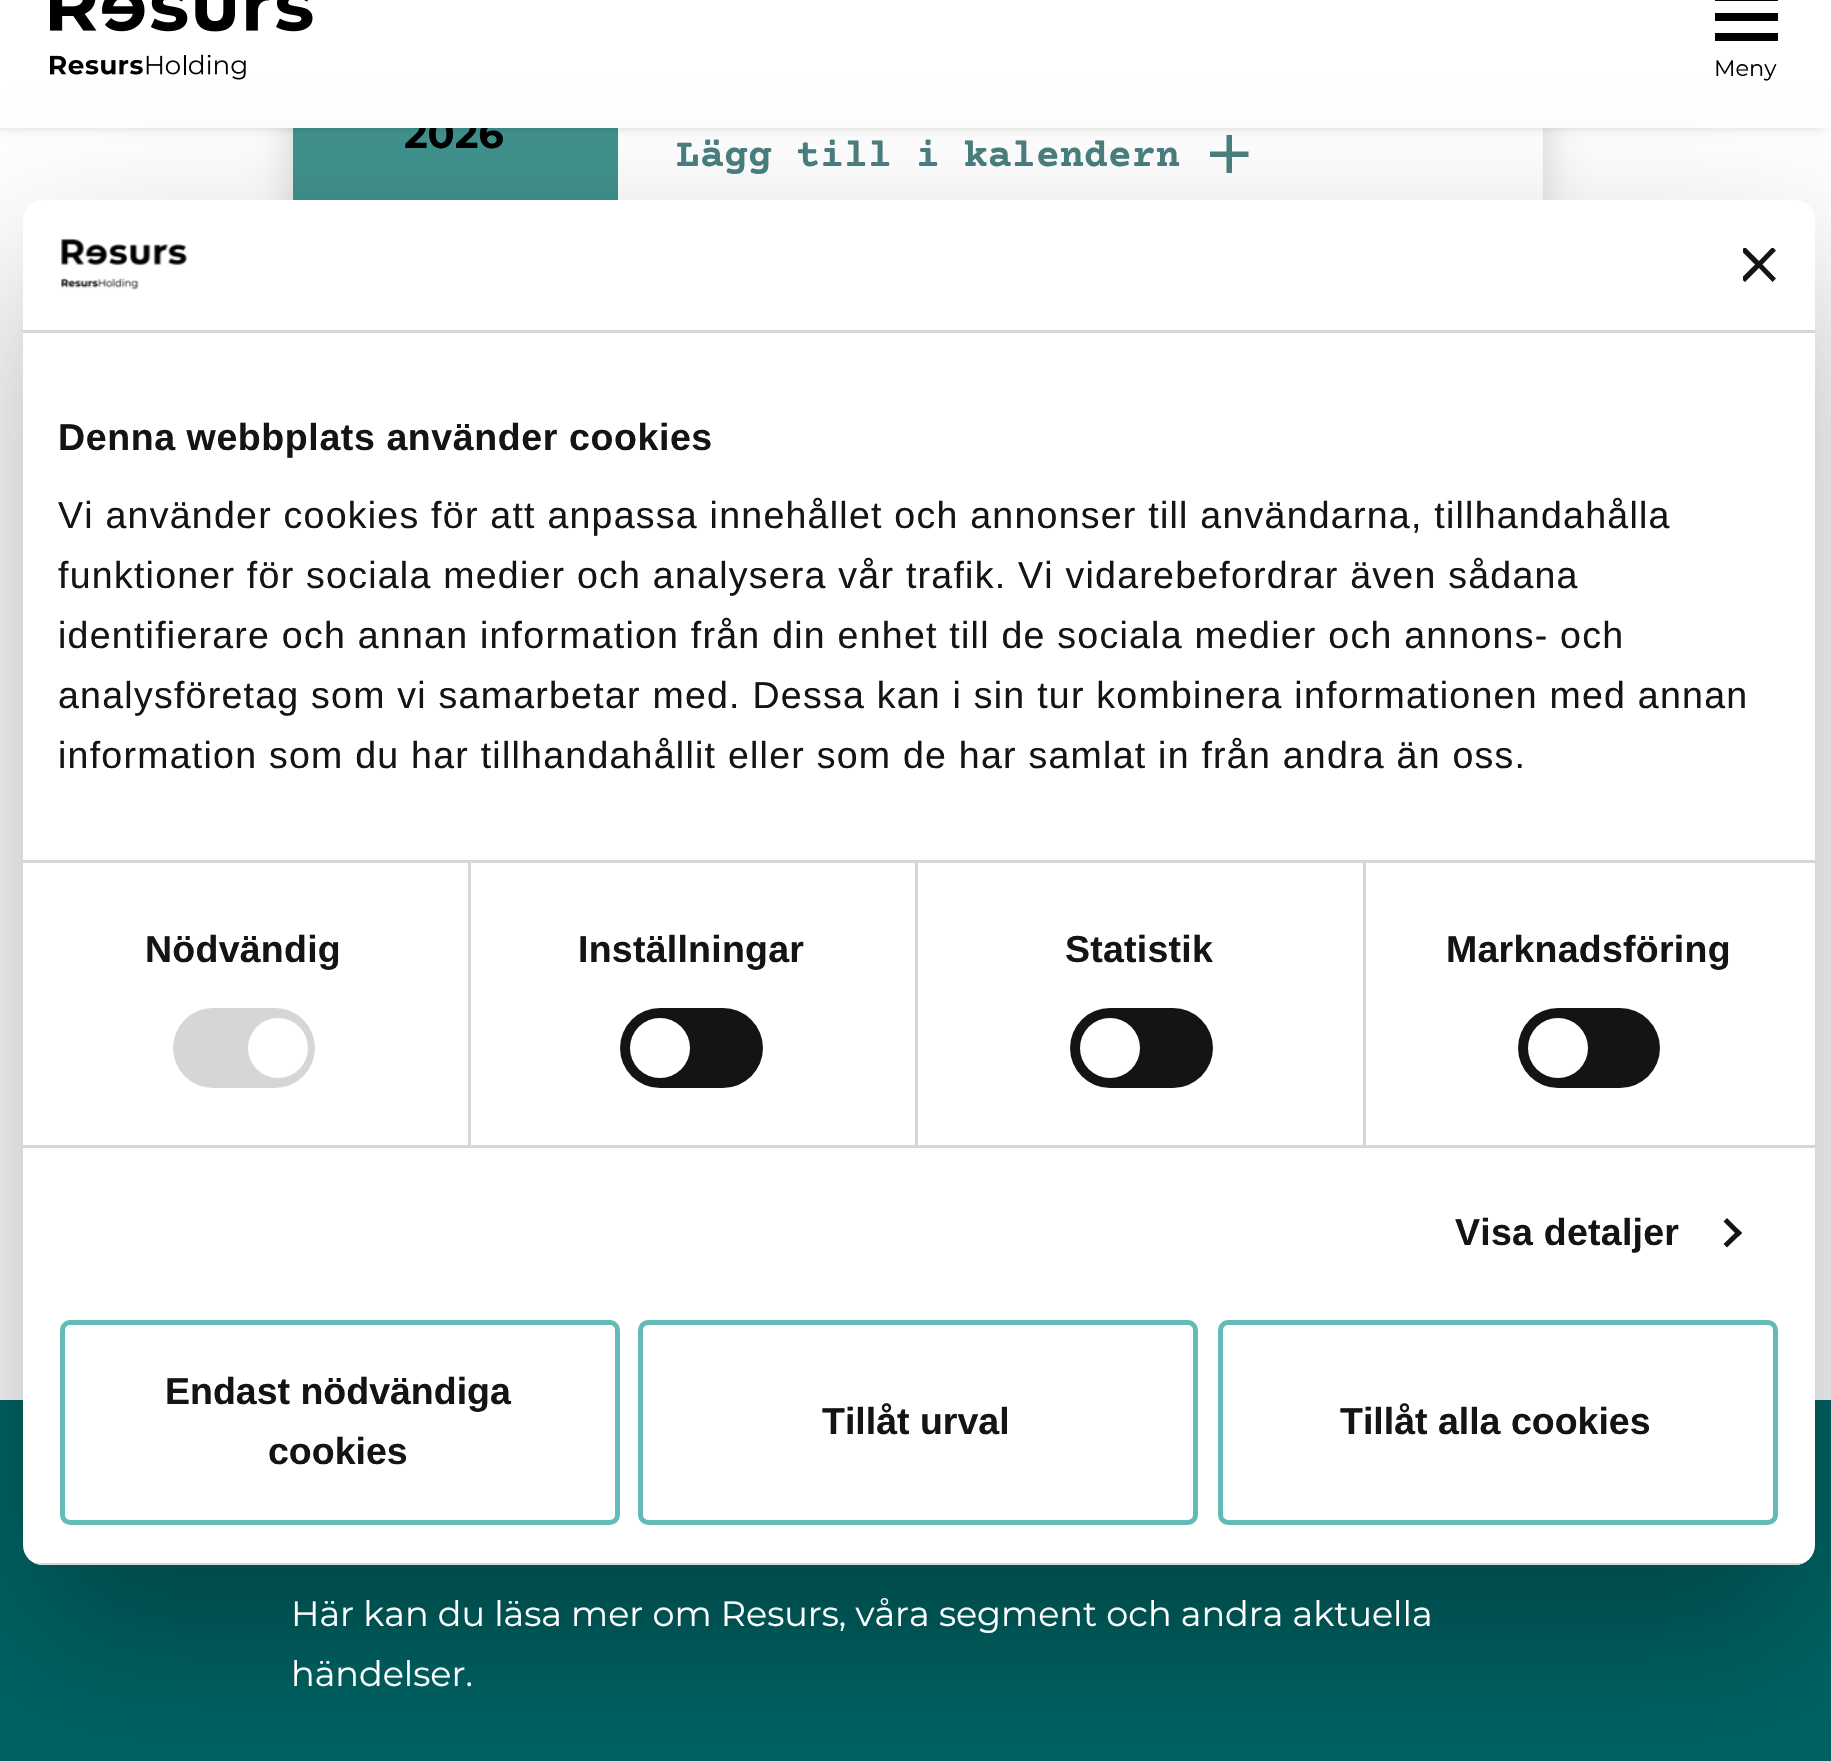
#include "include/core/SkBlurTypes.h"
#include "include/core/SkCanvas.h"
#include "include/core/SkData.h"
#include "include/core/SkFont.h"
#include "include/core/SkFontMgr.h"
#include "include/core/SkImage.h"
#include "include/core/SkMaskFilter.h"
#include "include/core/SkPaint.h"
#include "include/core/SkPathBuilder.h"
#include "include/core/SkTextBlob.h"
#include "include/effects/SkDashPathEffect.h"
#include "include/effects/SkGradientShader.h"
#include "include/utils/SkParsePath.h"

extern sk_sp<SkFontMgr> fontMgr;

void draw(SkCanvas* canvas) {
    SkPaint p;
    p.setAntiAlias(true);
    auto font = [&](const char* family, int weight, float size, bool italic = false) {
        SkFontStyle style(weight, SkFontStyle::kNormal_Width,
            italic ? SkFontStyle::kItalic_Slant : SkFontStyle::kUpright_Slant);
        SkFont result(fontMgr->matchFamilyStyle(family, style), size);
        result.setSubpixel(true);
        return result;
    };
    auto drawTracked = [&](const char* s, float x, float y, const SkFont& font, const SkPaint& ink, float letter, float word) {
        std::vector<SkGlyphID> glyphs(font.countText(s, strlen(s), SkTextEncoding::kUTF8));
        std::vector<float> xs(glyphs.size());
        font.textToGlyphs(s, strlen(s), SkTextEncoding::kUTF8, glyphs);
        font.getXPos(glyphs, xs, x);
        float extra = 0;
        for (size_t i = 0; i < glyphs.size(); i++) {
            xs[i] += extra;
            extra += letter + word * (glyphs[i] == font.unicharToGlyph(' '));
        }
        canvas->drawTextBlob(SkTextBlob::MakeFromPosHGlyphs(glyphs, xs, y, font), 0, 0, ink);
    };
    auto drawPhoto = [&](const char* path, float l, float t, float r, float b) {
        auto image = SkImages::DeferredFromEncodedData(SkData::MakeFromFileName(path));
        canvas->drawImageRect(image, SkRect::MakeLTRB(l, t, r, b), SkSamplingOptions());
    };
    canvas->clear(0xFFFFFFFF);
    canvas->save();
    canvas->clipPath(SkPathBuilder(SkPathFillType::kEvenOdd).moveTo(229, 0).lineTo(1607, 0).lineTo(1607, 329).lineTo(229, 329).close().moveTo(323, -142).lineTo(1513, -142).cubicTo(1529.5f, -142, 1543, -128.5f, 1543, -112).lineTo(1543, 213).cubicTo(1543, 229.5f, 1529.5f, 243, 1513, 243).lineTo(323, 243).cubicTo(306.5f, 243, 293, 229.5f, 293, 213).lineTo(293, -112).cubicTo(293, -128.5f, 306.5f, -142, 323, -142).close().detach(), true);
    p.setColor(0x2B000000);
    p.setMaskFilter(SkMaskFilter::MakeBlur(kNormal_SkBlurStyle, 21));
    canvas->drawRoundRect(SkRect::MakeLTRB(293, -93, 1543, 265), 30, 30, p);
    p.setMaskFilter(nullptr);
    canvas->restore();
    p.setColor(0xFF40928E);
    canvas->drawRect(SkRect::MakeLTRB(293, 128, 618, 200), p);
    p.setColor(0xFF4A7F80);
    canvas->drawPath(SkPathBuilder().moveTo(1248.5f, 157).lineTo(1232, 157).lineTo(1232, 173).lineTo(1226.5f, 173).lineTo(1226.5f, 157).lineTo(1210, 157).lineTo(1210, 151.5f).lineTo(1226.5f, 151.5f).lineTo(1226.5f, 135).lineTo(1232, 135).lineTo(1232, 151.5f).lineTo(1248.5f, 151.5f).close().detach(), p);
    p.setColor(0xFF000000);
    p.setMaskFilter(SkMaskFilter::MakeBlur(kNormal_SkBlurStyle, 9));
    canvas->drawRect(SkRect::MakeLTRB(-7, -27, 1825, 115), p);
    p.setMaskFilter(nullptr);
    auto font1 = font("Montserrat", 700, 40);
    canvas->drawString("2026", 404, 148, font1, p);
    p.setColor(0xFFFFFFFF);
    canvas->drawRect(SkRect::MakeLTRB(0, 0, 1831, 128), p);
    drawPhoto("media/1.png", 50, 0, 313, 80);
    {
        const struct { float l, t, r, b; SkColor color; } items[] = {
            {1715, 13, 1778, 21, 0xFF000000},
            {1715, 0, 1778, 1, 0xFF000000},
            {1715, 33, 1778, 41, 0xFF000000},
        };
        for (auto [l, t, r, b, color] : items) {
            p.setColor(color);
            canvas->drawRect(SkRect::MakeLTRB(l, t, r, b), p);
        }
    }
    auto font2 = font("Montserrat", 400, 22.5f);
    canvas->drawString("Meny", 1714, 76, font2, p);
    auto font3 = font("Courier Prime", 700, 40);
    p.setColor(0xFF4A7F80);
    canvas->drawString("Lägg till i kalendern", 676, 166, font3, p);
    p.setColor(0xFF006464);
    canvas->drawRect(SkRect::MakeLTRB(0, 1400, 1831, 1761), p);
    canvas->save();
    canvas->clipPath(SkPathBuilder(SkPathFillType::kEvenOdd).moveTo(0, 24).lineTo(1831, 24).lineTo(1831, 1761).lineTo(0, 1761).close().moveTo(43, 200).lineTo(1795, 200).cubicTo(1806, 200, 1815, 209, 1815, 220).lineTo(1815, 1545).cubicTo(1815, 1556, 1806, 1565, 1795, 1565).lineTo(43, 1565).cubicTo(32, 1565, 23, 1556, 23, 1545).lineTo(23, 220).cubicTo(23, 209, 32, 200, 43, 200).close().detach(), true);
    p.setColor(0x4D000000);
    p.setMaskFilter(SkMaskFilter::MakeBlur(kNormal_SkBlurStyle, 85));
    canvas->drawRoundRect(SkRect::MakeLTRB(23, 280, 1815, 1645), 20, 20, p);
    p.setMaskFilter(nullptr);
    canvas->restore();
    p.setColor(0xFFFFFFFF);
    canvas->drawRoundRect(SkRect::MakeLTRB(23, 200, 1815, 1565), 20, 20, p);
    p.setColor(0xFFD6D6D6);
    canvas->drawRect(SkRect::MakeLTRB(23, 330, 1815, 333), p);
    drawPhoto("media/2.png", 61, 238, 187, 290);
    canvas->save();
    canvas->clipRect(SkRect::MakeLTRB(1743, 248, 1778, 283));
    p.setColor(0xFF141414);
    canvas->drawPath(SkPathBuilder().moveTo(1776, 250.5f).lineTo(1772.5f, 247).lineTo(1759, 261).lineTo(1745, 247).lineTo(1741, 250.5f).lineTo(1755, 264.5f).lineTo(1741, 278.5f).lineTo(1745, 282).lineTo(1759, 268).lineTo(1772.5f, 282).lineTo(1776, 278.5f).lineTo(1762.5f, 264.5f).close().detach(), p);
    canvas->restore();
    p.setColor(0xFFD6D6D6);
    canvas->drawRect(SkRect::MakeLTRB(23, 860, 1815, 863), p);
    auto font4 = font("Liberation Sans", 700, 37.5f);
    p.setColor(0xFF141414);
    drawTracked("Denna webbplats använder cookies", 58, 450, font4, p, 0.6f, 0);
    auto font5 = font("Liberation Sans", 400, 37.5f);
    {
        const struct { const char* s; float x, y; } items[] = {
            {"Vi använder cookies för att anpassa innehållet och annonser till användarna, tillhandahålla", 58, 528},
            {"funktioner för sociala medier och analysera vår trafik. Vi vidarebefordrar även sådana", 58, 588},
            {"identifierare och annan information från din enhet till de sociala medier och annons- och", 58, 648},
            {"analysföretag som vi samarbetar med. Dessa kan i sin tur kombinera informationen med annan", 58, 708},
            {"information som du har tillhandahållit eller som de har samlat in från andra än oss.", 58, 768},
        };
        for (auto [s, x, y] : items) {
            drawTracked(s, x, y, font5, p, 1.25f, 0);
        }
    }
    p.setColor(0xFFD6D6D6);
    canvas->drawRect(SkRect::MakeLTRB(23, 1145, 1815, 1148), p);
    canvas->drawRect(SkRect::MakeLTRB(468, 863, 471, 1145), p);
    p.setColor(0xFF141414);
    drawTracked("Nödvändig", 145, 962, font4, p, 0.25f, 0);
    p.setColor(0xFFD6D6D6);
    canvas->drawRoundRect(SkRect::MakeLTRB(173, 1008, 315, 1088), 40, 40, p);
    p.setColor(0xFFFFFFFF);
    canvas->drawCircle(278, 1048, 30, p);
    p.setColor(0xFFD6D6D6);
    canvas->drawRect(SkRect::MakeLTRB(915, 863, 918, 1145), p);
    p.setColor(0xFF141414);
    drawTracked("Inställningar", 578, 962, font4, p, 0.25f, 0);
    canvas->drawRoundRect(SkRect::MakeLTRB(620, 1008, 763, 1088), 40, 40, p);
    p.setColor(0xFFFFFFFF);
    canvas->drawCircle(660, 1048, 30, p);
    p.setColor(0xFFD6D6D6);
    canvas->drawRect(SkRect::MakeLTRB(1363, 863, 1366, 1145), p);
    p.setColor(0xFF141414);
    drawTracked("Statistik", 1065, 962, font4, p, 0.25f, 0);
    canvas->drawRoundRect(SkRect::MakeLTRB(1070, 1008, 1213, 1088), 40, 40, p);
    p.setColor(0xFFFFFFFF);
    canvas->drawCircle(1110, 1048, 30, p);
    p.setColor(0xFF141414);
    drawTracked("Marknadsföring", 1446, 962, font4, p, 0.25f, 0);
    canvas->drawRoundRect(SkRect::MakeLTRB(1518, 1008, 1660, 1088), 40, 40, p);
    p.setColor(0xFFFFFFFF);
    canvas->drawCircle(1558, 1048, 30, p);
    p.setColor(0xFF141414);
    drawTracked("Visa detaljer", 1455, 1245, font4, p, 0.25f, 0);
    canvas->drawPath(SkPathBuilder().moveTo(1727, 1218).lineTo(1742, 1233).lineTo(1738.5f, 1236.5f).lineTo(1723.5f, 1221.5f).close().detach(), p);
    canvas->drawPath(SkPathBuilder().moveTo(1738.5f, 1229.5f).lineTo(1742, 1233).lineTo(1727, 1247.5f).lineTo(1723.5f, 1244).close().detach(), p);
    canvas->save();
    canvas->clipPath(SkPathBuilder().moveTo(43, 200).lineTo(1795, 200).cubicTo(1806, 200, 1815, 209, 1815, 220).lineTo(1815, 1545).cubicTo(1815, 1556, 1806, 1565, 1795, 1565).lineTo(43, 1565).cubicTo(32, 1565, 23, 1556, 23, 1545).lineTo(23, 220).cubicTo(23, 209, 32, 200, 43, 200).close().detach(), true);
    p.setColor(0xFFD6D6D6);
    canvas->drawRect(SkRect::MakeLTRB(34, 1563, 1804, 1565), p);
    canvas->restore();
    p.setStyle(SkPaint::kStroke_Style);
    p.setStrokeWidth(5);
    p.setColor(0xFF63BBB7);
    canvas->drawRoundRect(SkRect::MakeLTRB(62.5f, 1322.5f, 617.5f, 1522.5f), 7.5f, 7.5f, p);
    p.setStyle(SkPaint::kFill_Style);
    p.setColor(0xFF141414);
    canvas->drawString("Endast nödvändiga", 165, 1404, font4, p);
    canvas->drawString("cookies", 268, 1464, font4, p);
    p.setStyle(SkPaint::kStroke_Style);
    p.setColor(0xFF63BBB7);
    canvas->drawRoundRect(SkRect::MakeLTRB(640.5f, 1322.5f, 1195.5f, 1522.5f), 7.5f, 7.5f, p);
    p.setStyle(SkPaint::kFill_Style);
    p.setColor(0xFF141414);
    canvas->drawString("Tillåt urval", 822, 1434, font4, p);
    p.setStyle(SkPaint::kStroke_Style);
    p.setColor(0xFF63BBB7);
    canvas->drawRoundRect(SkRect::MakeLTRB(1220.5f, 1322.5f, 1775.5f, 1522.5f), 7.5f, 7.5f, p);
    p.setStyle(SkPaint::kFill_Style);
    p.setColor(0xFF141414);
    canvas->drawString("Tillåt alla cookies", 1340, 1434, font4, p);
    auto font6 = font("Montserrat", 400, 35);
    p.setColor(0xFFFFFFFF);
    canvas->drawString("Här kan du läsa mer om Resurs, våra segment och andra aktuella", 291, 1626, font6, p);
    canvas->drawString("händelser.", 291, 1686, font6, p);
}
